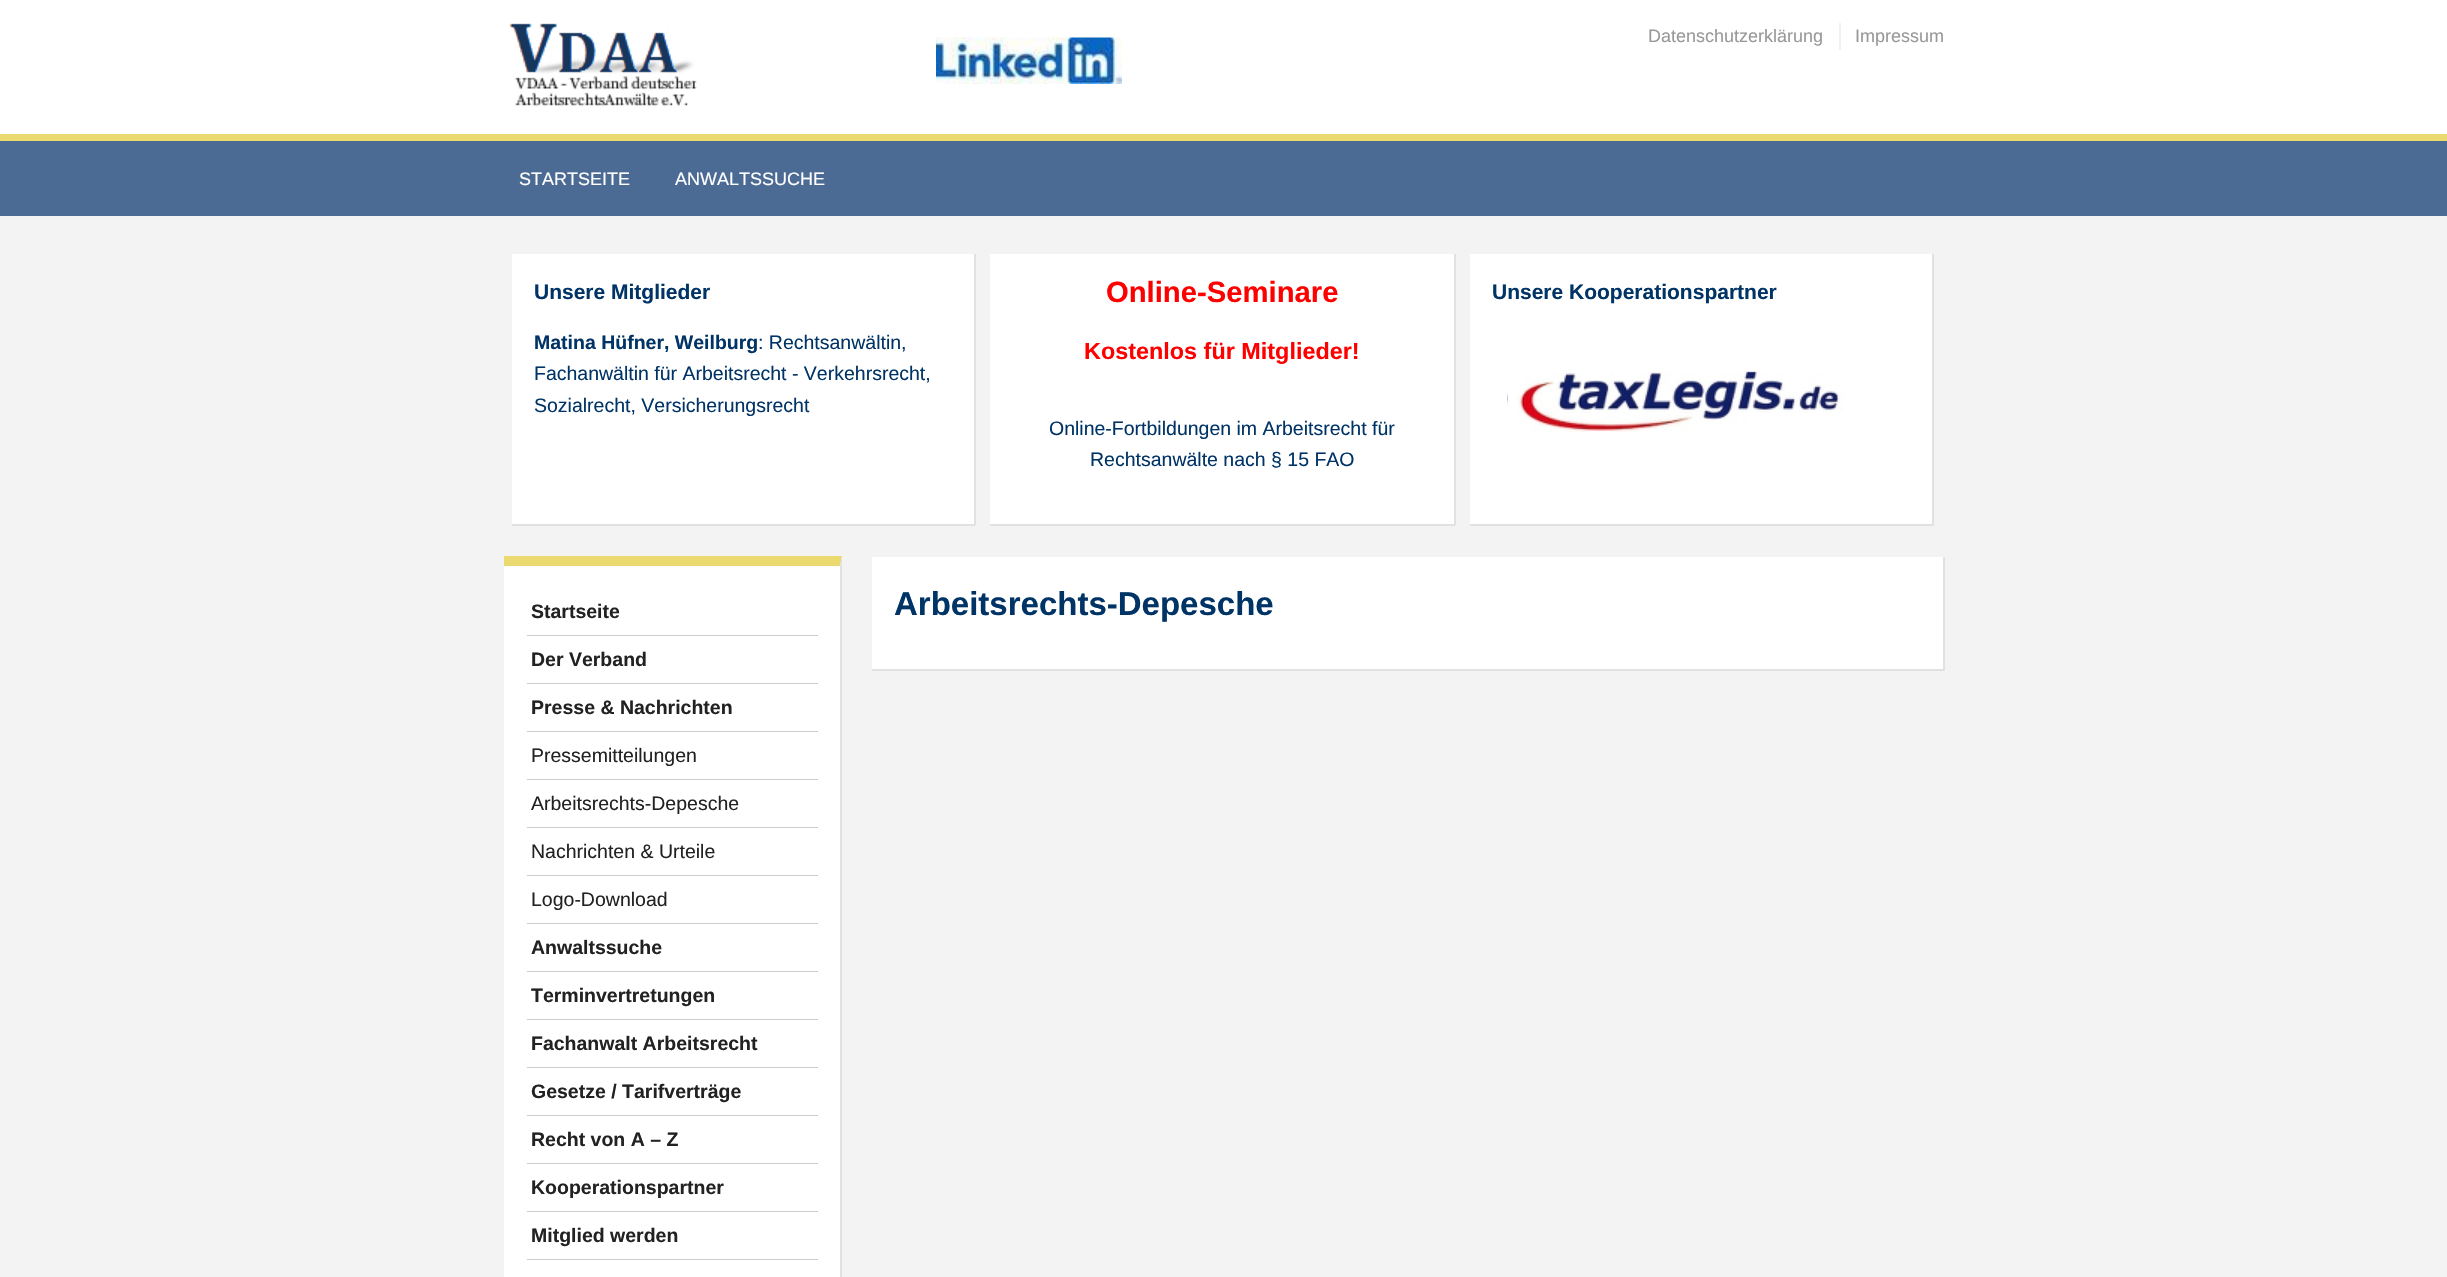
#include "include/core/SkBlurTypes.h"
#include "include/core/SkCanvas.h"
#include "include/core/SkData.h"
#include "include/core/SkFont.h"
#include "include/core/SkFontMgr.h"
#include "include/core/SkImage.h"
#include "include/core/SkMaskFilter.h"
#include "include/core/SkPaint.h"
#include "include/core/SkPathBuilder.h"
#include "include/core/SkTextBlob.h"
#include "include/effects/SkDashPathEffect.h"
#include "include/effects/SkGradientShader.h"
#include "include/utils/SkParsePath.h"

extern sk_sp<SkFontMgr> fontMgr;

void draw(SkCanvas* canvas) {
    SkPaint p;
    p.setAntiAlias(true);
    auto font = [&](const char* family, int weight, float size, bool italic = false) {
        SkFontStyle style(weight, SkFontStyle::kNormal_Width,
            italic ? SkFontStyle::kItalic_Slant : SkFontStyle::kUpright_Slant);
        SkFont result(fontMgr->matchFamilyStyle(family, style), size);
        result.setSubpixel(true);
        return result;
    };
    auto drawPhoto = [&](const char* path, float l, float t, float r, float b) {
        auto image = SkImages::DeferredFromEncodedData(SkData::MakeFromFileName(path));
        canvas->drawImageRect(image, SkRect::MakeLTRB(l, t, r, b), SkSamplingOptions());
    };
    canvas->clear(0xFFF3F3F3);
    p.setColor(0xFFFFFFFF);
    canvas->drawRect(SkRect::MakeLTRB(0, 0, 2447, 134), p);
    drawPhoto("media/1.png", 509, 23, 697, 107);
    drawPhoto("media/2.png", 936, 37, 1122, 84);
    auto font1 = font("Liberation Sans", 400, 18);
    p.setColor(0xFF999999);
    canvas->drawString("Datenschutzerklärung", 1648, 42, font1, p);
    p.setColor(0xFFF1F1F1);
    canvas->drawRect(SkRect::MakeLTRB(1839, 23, 1841, 50), p);
    p.setColor(0xFF999999);
    canvas->drawString("Impressum", 1855, 42, font1, p);
    p.setColor(0xFF4B6B94);
    canvas->drawRect(SkRect::MakeLTRB(0, 141, 2447, 216), p);
    p.setColor(0xFFEBDA6F);
    canvas->drawRect(SkRect::MakeLTRB(0, 134, 2447, 141), p);
    p.setColor(0xFFFFFFFF);
    canvas->drawString("STARTSEITE", 519, 185, font1, p);
    canvas->drawString("ANWALTSSUCHE", 675, 185, font1, p);
    {
        const struct { float l, t, r, b; SkColor color; } items[] = {
            {512, 254, 974, 524, 0xFFFFFFFF},
            {974, 254, 976, 525, 0xFFE1E1E1},
            {512, 524, 975, 526, 0xFFE1E1E1},
        };
        for (auto [l, t, r, b, color] : items) {
            p.setColor(color);
            canvas->drawRect(SkRect::MakeLTRB(l, t, r, b), p);
        }
    }
    auto font2 = font("Liberation Sans", 700, 21);
    p.setColor(0xFF003366);
    canvas->drawString("Unsere Mitglieder", 534, 299, font2, p);
    auto font3 = font("Liberation Sans", 700, 19.5f);
    canvas->drawString("Matina Hüfner, Weilburg", 534, 349, font3, p);
    auto font4 = font("Liberation Sans", 400, 19.5f);
    {
        const struct { const char* s; float x, y; } items[] = {
            {": Rechtsanwältin,", 758, 349},
            {"Fachanwältin für Arbeitsrecht - Verkehrsrecht,", 534, 380},
            {"Sozialrecht, Versicherungsrecht", 534, 412},
        };
        for (auto [s, x, y] : items) {
            canvas->drawString(s, x, y, font4, p);
        }
    }
    {
        const struct { float l, t, r, b; SkColor color; } items[] = {
            {990, 254, 1454, 524, 0xFFFFFFFF},
            {1454, 254, 1456, 525, 0xFFE1E1E1},
            {990, 524, 1455, 526, 0xFFE1E1E1},
        };
        for (auto [l, t, r, b, color] : items) {
            p.setColor(color);
            canvas->drawRect(SkRect::MakeLTRB(l, t, r, b), p);
        }
    }
    auto font5 = font("Liberation Sans", 700, 29.25f);
    p.setColor(0xFFFF0000);
    canvas->drawString("Online-Seminare", 1106, 302, font5, p);
    auto font6 = font("Liberation Sans", 700, 23.4f);
    canvas->drawString("Kostenlos für Mitglieder!", 1084, 359, font6, p);
    p.setColor(0xFF003366);
    canvas->drawString("Online-Fortbildungen im Arbeitsrecht für", 1049, 435, font4, p);
    canvas->drawString("Rechtsanwälte nach § 15 FAO", 1090, 466, font4, p);
    {
        const struct { float l, t, r, b; SkColor color; } items[] = {
            {1470, 254, 1932, 524, 0xFFFFFFFF},
            {1932, 254, 1934, 525, 0xFFE1E1E1},
            {1470, 524, 1934, 526, 0xFFE1E1E1},
        };
        for (auto [l, t, r, b, color] : items) {
            p.setColor(color);
            canvas->drawRect(SkRect::MakeLTRB(l, t, r, b), p);
        }
    }
    p.setColor(0xFF003366);
    canvas->drawString("Unsere Kooperationspartner", 1492, 299, font2, p);
    drawPhoto("media/3.png", 1507, 371, 1845, 432);
    p.setStyle(SkPaint::kStroke_Style);
    p.setStrokeWidth(8);
    p.setColor(0xFFFFFFFF);
    canvas->drawRect(SkRect::MakeLTRB(1512, 333, 1849, 475), p);
    drawPhoto("media/4.png", 1522, 373, 1837, 431);
    p.setStyle(SkPaint::kFill_Style);
    canvas->drawRect(SkRect::MakeLTRB(504, 557, 842, 1277), p);
    p.setColor(0xFFEBDA6F);
    canvas->drawPath(SkPathBuilder().moveTo(504, 556).lineTo(842, 556).lineTo(840, 566).lineTo(504, 566).close().detach(), p);
    p.setColor(0xFFE1E1E1);
    canvas->drawPath(SkPathBuilder().moveTo(842, 556).lineTo(842, 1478).lineTo(840, 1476).lineTo(840, 566).close().detach(), p);
    p.setColor(0xFFCCCCCC);
    canvas->drawRect(SkRect::MakeLTRB(527, 635, 818, 636), p);
    p.setColor(0xFF222222);
    canvas->drawString("Startseite", 531, 618, font3, p);
    p.setColor(0xFFCCCCCC);
    canvas->drawRect(SkRect::MakeLTRB(527, 683, 818, 684), p);
    p.setColor(0xFF222222);
    canvas->drawString("Der Verband", 531, 666, font3, p);
    p.setColor(0xFFCCCCCC);
    canvas->drawRect(SkRect::MakeLTRB(527, 731, 818, 732), p);
    p.setColor(0xFF222222);
    canvas->drawString("Presse & Nachrichten", 531, 714, font3, p);
    p.setColor(0xFFCCCCCC);
    canvas->drawRect(SkRect::MakeLTRB(527, 779, 818, 780), p);
    p.setColor(0xFF222222);
    canvas->drawString("Pressemitteilungen", 531, 762, font4, p);
    p.setColor(0xFFCCCCCC);
    canvas->drawRect(SkRect::MakeLTRB(527, 827, 818, 828), p);
    p.setColor(0xFF222222);
    canvas->drawString("Arbeitsrechts-Depesche", 531, 810, font4, p);
    p.setColor(0xFFCCCCCC);
    canvas->drawRect(SkRect::MakeLTRB(527, 875, 818, 876), p);
    p.setColor(0xFF222222);
    canvas->drawString("Nachrichten & Urteile", 531, 858, font4, p);
    p.setColor(0xFFCCCCCC);
    canvas->drawRect(SkRect::MakeLTRB(527, 923, 818, 924), p);
    p.setColor(0xFF222222);
    canvas->drawString("Logo-Download", 531, 906, font4, p);
    p.setColor(0xFFCCCCCC);
    canvas->drawRect(SkRect::MakeLTRB(527, 971, 818, 972), p);
    p.setColor(0xFF222222);
    canvas->drawString("Anwaltssuche", 531, 954, font3, p);
    p.setColor(0xFFCCCCCC);
    canvas->drawRect(SkRect::MakeLTRB(527, 1019, 818, 1020), p);
    p.setColor(0xFF222222);
    canvas->drawString("Terminvertretungen", 531, 1002, font3, p);
    p.setColor(0xFFCCCCCC);
    canvas->drawRect(SkRect::MakeLTRB(527, 1067, 818, 1068), p);
    p.setColor(0xFF222222);
    canvas->drawString("Fachanwalt Arbeitsrecht", 531, 1050, font3, p);
    p.setColor(0xFFCCCCCC);
    canvas->drawRect(SkRect::MakeLTRB(527, 1115, 818, 1116), p);
    p.setColor(0xFF222222);
    canvas->drawString("Gesetze / Tarifverträge", 531, 1098, font3, p);
    p.setColor(0xFFCCCCCC);
    canvas->drawRect(SkRect::MakeLTRB(527, 1163, 818, 1164), p);
    p.setColor(0xFF222222);
    canvas->drawString("Recht von A – Z", 531, 1146, font3, p);
    p.setColor(0xFFCCCCCC);
    canvas->drawRect(SkRect::MakeLTRB(527, 1211, 818, 1212), p);
    p.setColor(0xFF222222);
    canvas->drawString("Kooperationspartner", 531, 1194, font3, p);
    p.setColor(0xFFCCCCCC);
    canvas->drawRect(SkRect::MakeLTRB(527, 1259, 818, 1260), p);
    p.setColor(0xFF222222);
    canvas->drawString("Mitglied werden", 531, 1242, font3, p);
    {
        const struct { float l, t, r, b; SkColor color; } items[] = {
            {872, 557, 1943, 669, 0xFFFFFFFF},
            {1943, 557, 1945, 671, 0xFFE1E1E1},
            {872, 669, 1944, 671, 0xFFE1E1E1},
        };
        for (auto [l, t, r, b, color] : items) {
            p.setColor(color);
            canvas->drawRect(SkRect::MakeLTRB(l, t, r, b), p);
        }
    }
    auto font7 = font("Liberation Sans", 700, 33);
    p.setColor(0xFF003366);
    canvas->drawString("Arbeitsrechts-Depesche", 894, 615, font7, p);
}
